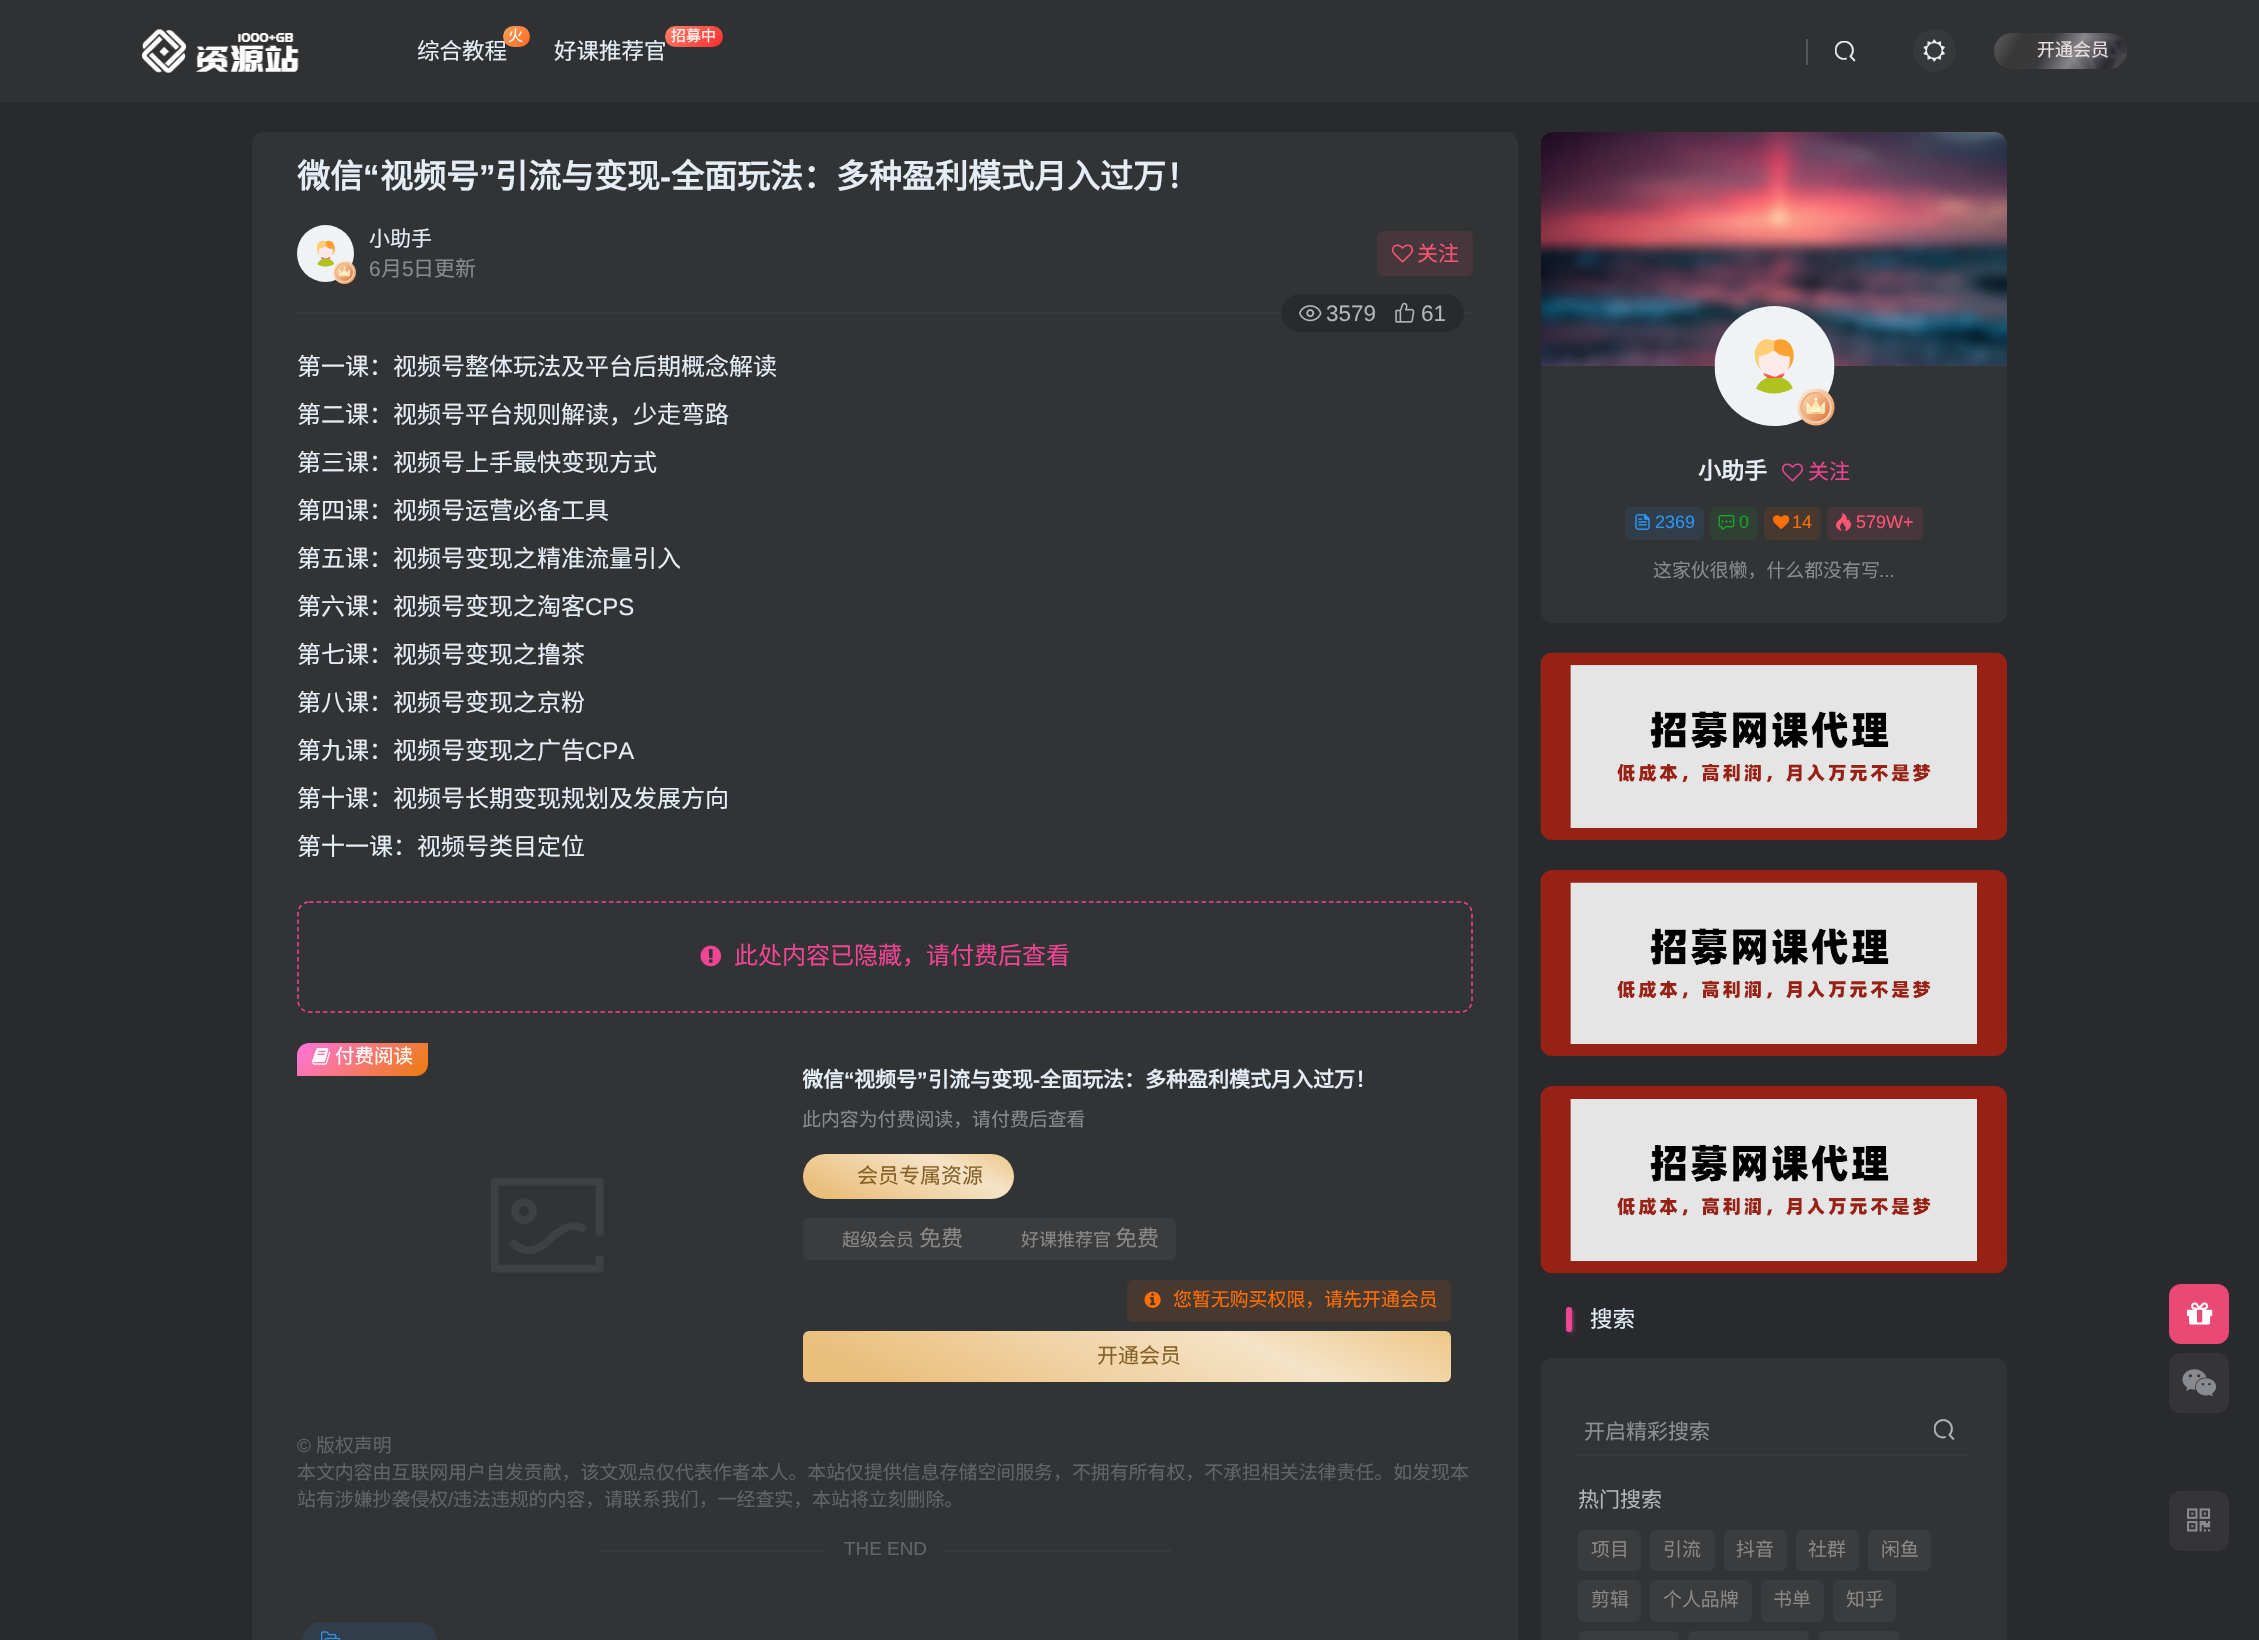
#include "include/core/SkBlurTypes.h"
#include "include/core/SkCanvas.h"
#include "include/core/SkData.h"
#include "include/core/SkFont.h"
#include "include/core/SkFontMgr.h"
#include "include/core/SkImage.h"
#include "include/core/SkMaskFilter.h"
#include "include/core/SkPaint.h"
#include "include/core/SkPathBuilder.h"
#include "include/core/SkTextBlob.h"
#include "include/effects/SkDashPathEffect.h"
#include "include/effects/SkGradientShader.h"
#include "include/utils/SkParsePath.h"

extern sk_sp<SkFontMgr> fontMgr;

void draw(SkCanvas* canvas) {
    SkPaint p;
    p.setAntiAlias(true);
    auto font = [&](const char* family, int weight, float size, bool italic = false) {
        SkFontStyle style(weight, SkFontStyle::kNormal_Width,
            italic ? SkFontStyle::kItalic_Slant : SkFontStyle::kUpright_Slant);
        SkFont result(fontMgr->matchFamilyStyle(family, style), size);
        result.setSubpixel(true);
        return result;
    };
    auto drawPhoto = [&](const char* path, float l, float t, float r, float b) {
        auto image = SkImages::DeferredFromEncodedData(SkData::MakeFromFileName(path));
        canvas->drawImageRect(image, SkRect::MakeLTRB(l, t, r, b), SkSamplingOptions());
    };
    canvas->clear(0xFF292A2D);
    p.setColor(0xFF303133);
    canvas->drawRect(SkRect::MakeLTRB(0, 0, 2259, 102), p);
    drawPhoto("media/1.png", 142, 29, 299, 73);
    auto font1 = font("Noto Sans CJK SC", 400, 22.5f);
    p.setColor(0xFFE5EEF7);
    canvas->drawString("综合教程", 417, 59, font1, p);
    {
        const SkColor colors[] = {0xFFF59F54, 0xFFFF6922};
        const float stops[] = {0.1f, 1};
        const SkPoint ends[] = {{503, 24}, {528, 48}};
        p.setShader(SkGradientShader::MakeLinear(ends, colors, stops, 2, SkTileMode::kClamp));
        p.setAlpha(255);
    }
    canvas->drawRoundRect(SkRect::MakeLTRB(503, 26, 530, 47), 10.5f, 10.5f, p);
    auto font2 = font("Noto Sans CJK SC", 400, 15);
    p.setShader(nullptr);
    p.setColor(0xFFFFFFFF);
    canvas->drawString("火", 508, 41, font2, p);
    p.setColor(0xFFE5EEF7);
    canvas->drawString("好课推荐官", 554, 59, font1, p);
    {
        const SkColor colors[] = {0xFFFD7A64, 0xFFFB2D2D};
        const float stops[] = {0.1f, 1};
        const SkPoint ends[] = {{674, 16}, {714, 56}};
        p.setShader(SkGradientShader::MakeLinear(ends, colors, stops, 2, SkTileMode::kClamp));
        p.setAlpha(255);
    }
    canvas->drawRoundRect(SkRect::MakeLTRB(665, 26, 723, 47), 10.5f, 10.5f, p);
    p.setShader(nullptr);
    p.setColor(0xFFFFFFFF);
    canvas->drawString("招募中", 671, 41, font2, p);
    p.setColor(0xFF54575A);
    canvas->drawRect(SkRect::MakeLTRB(1806, 39, 1808, 65), p);
    drawPhoto("media/2.png", 1835, 41, 1856, 62);
    p.setColor(0xFF373839);
    canvas->drawCircle(1934.5f, 50.5f, 21.5f, p);
    drawPhoto("media/3.png", 1923, 39, 1945, 62);
    {
        const SkColor colors[] = {0xFF4C4D51, 0xFF2A2A31, 0xFF85858A, 0xFF393A3C, 0xFF393838, 0xFF5E5F62};
        const float stops[] = {0, 0.15f, 0.4f, 0.6f, 0.8f, 1};
        const SkPoint ends[] = {{2118, 84}, {2002, 18}};
        p.setShader(SkGradientShader::MakeLinear(ends, colors, stops, 6, SkTileMode::kClamp));
        p.setAlpha(255);
    }
    canvas->drawRoundRect(SkRect::MakeLTRB(1994, 33, 2127, 69), 18, 18, p);
    auto font3 = font("Noto Sans CJK SC", 400, 18);
    p.setShader(nullptr);
    p.setColor(0xFFECE0E0);
    canvas->drawString("开通会员", 2037, 56, font3, p);
    drawPhoto("media/4.png", 2069, 36, 2127, 69);
    p.setColor(0xFF323335);
    canvas->drawRoundRect(SkRect::MakeLTRB(252, 132, 1518, 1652), 12, 12, p);
    auto font4 = font("Noto Sans CJK SC", 700, 33);
    p.setColor(0xFFE5EEF7);
    canvas->drawString("微信", 297, 188, font4, p);
    auto font5 = font("Liberation Sans", 700, 33);
    canvas->drawString("“", 363, 188, font5, p);
    canvas->drawString("视频号", 380, 188, font4, p);
    canvas->drawString("”", 479, 188, font5, p);
    canvas->drawString("引流与变现", 495, 188, font4, p);
    canvas->drawString("全面玩法：多种盈利模式月入过万！", 671, 188, font4, p);
    canvas->drawString("-", 660, 188, font5, p);
    drawPhoto("media/5.png", 297, 225, 354, 282);
    drawPhoto("media/6.png", 333, 261, 356, 284);
    auto font6 = font("Noto Sans CJK SC", 400, 21);
    canvas->drawString("小助手", 369, 246, font6, p);
    auto font7 = font("Liberation Sans", 400, 21);
    p.setColor(0xFF888A8F);
    canvas->drawString("6", 369, 276, font7, p);
    canvas->drawString("月", 381, 276, font6, p);
    canvas->drawString("5", 402, 276, font7, p);
    canvas->drawString("日更新", 413, 276, font6, p);
    p.setColor(0xFF47363B);
    canvas->drawRoundRect(SkRect::MakeLTRB(1377, 231, 1473, 276), 6, 6, p);
    drawPhoto("media/7.png", 1392, 244, 1413, 263);
    p.setColor(0xFFFF5473);
    canvas->drawString("关注", 1417, 261, font6, p);
    p.setColor(0xFF38393B);
    canvas->drawRect(SkRect::MakeLTRB(297, 312, 1473, 314), p);
    p.setColor(0xFF292A2D);
    canvas->drawRoundRect(SkRect::MakeLTRB(1281, 294, 1464, 332), 19, 19, p);
    drawPhoto("media/8.png", 1299, 305, 1322, 322);
    auto font8 = font("Liberation Sans", 400, 22.5f);
    p.setColor(0xFFB4B6BB);
    canvas->drawString("3579", 1326, 321, font8, p);
    drawPhoto("media/9.png", 1395, 302, 1415, 323);
    canvas->drawString("61", 1421, 321, font8, p);
    auto font9 = font("Noto Sans CJK SC", 400, 24);
    p.setColor(0xFFE5EEF7);
    {
        const struct { const char* s; float x, y; } items[] = {
            {"第一课：视频号整体玩法及平台后期概念解读", 297, 375},
            {"第二课：视频号平台规则解读，少走弯路", 297, 423},
            {"第三课：视频号上手最快变现方式", 297, 471},
            {"第四课：视频号运营必备工具", 297, 519},
            {"第五课：视频号变现之精准流量引入", 297, 567},
            {"第六课：视频号变现之淘客", 297, 615},
        };
        for (auto [s, x, y] : items) {
            canvas->drawString(s, x, y, font9, p);
        }
    }
    auto font10 = font("Liberation Sans", 400, 24);
    canvas->drawString("CPS", 585, 615, font10, p);
    {
        const struct { const char* s; float x, y; } items[] = {
            {"第七课：视频号变现之撸茶", 297, 663},
            {"第八课：视频号变现之京粉", 297, 711},
            {"第九课：视频号变现之广告", 297, 759},
        };
        for (auto [s, x, y] : items) {
            canvas->drawString(s, x, y, font9, p);
        }
    }
    canvas->drawString("CPA", 585, 759, font10, p);
    canvas->drawString("第十课：视频号长期变现规划及发展方向", 297, 807, font9, p);
    canvas->drawString("第十一课：视频号类目定位", 297, 855, font9, p);
    p.setStyle(SkPaint::kStroke_Style);
    p.setStrokeWidth(1.5f);
    p.setColor(0xFFF04494);
    p.setPathEffect(SkDashPathEffect::Make({{4.5f, 3}}, 0));
    canvas->drawPath(SkPathBuilder().moveTo(309, 902).lineTo(1461, 902).cubicTo(1467, 902, 1472, 907.5f, 1472, 913.5f).lineTo(1472, 1000.5f).cubicTo(1472, 1006.5f, 1467, 1012, 1461, 1012).lineTo(309, 1012).cubicTo(303, 1012, 298, 1006.5f, 298, 1000.5f).lineTo(298, 913.5f).cubicTo(298, 907.5f, 303, 902, 309, 902).close().detach(), p);
    p.setPathEffect(nullptr);
    drawPhoto("media/10.png", 700, 945, 722, 967);
    p.setStyle(SkPaint::kFill_Style);
    canvas->drawString("此处内容已隐藏，请付费后查看", 734, 964, font9, p);
    canvas->save();
    canvas->clipPath(SkPathBuilder().moveTo(309, 1043).lineTo(1461, 1043).cubicTo(1467.5f, 1043, 1473, 1048.5f, 1473, 1055).lineTo(1473, 1392).cubicTo(1473, 1398.5f, 1467.5f, 1404, 1461, 1404).lineTo(309, 1404).cubicTo(302.5f, 1404, 297, 1398.5f, 297, 1392).lineTo(297, 1055).cubicTo(297, 1048.5f, 302.5f, 1043, 309, 1043).close().detach(), true);
    {
        const SkColor colors[] = {0xFFFF74CD, 0xFFEC7D0B};
        const float stops[] = {0.1f, 1};
        const SkPoint ends[] = {{321, 1016}, {404, 1099}};
        p.setShader(SkGradientShader::MakeLinear(ends, colors, stops, 2, SkTileMode::kClamp));
        p.setAlpha(255);
    }
    canvas->drawPath(SkPathBuilder().moveTo(309, 1040).lineTo(428, 1040).lineTo(428, 1064).cubicTo(428, 1070.5f, 422.5f, 1076, 416, 1076).lineTo(297, 1076).lineTo(297, 1052).cubicTo(297, 1045.5f, 302.5f, 1040, 309, 1040).close().detach(), p);
    canvas->restore();
    drawPhoto("media/11.png", 312, 1048, 331, 1065);
    auto font11 = font("Noto Sans CJK SC", 400, 19.5f);
    p.setShader(nullptr);
    p.setColor(0xFFFFFFFF);
    canvas->drawString("付费阅读", 335, 1063, font11, p);
    drawPhoto("media/12.png", 491, 1178, 604, 1273);
    canvas->save();
    canvas->clipRect(SkRect::MakeLTRB(803, 1065, 1451, 1095));
    auto font12 = font("Noto Sans CJK SC", 700, 21);
    p.setColor(0xFFE5EEF7);
    canvas->drawString("微信", 802, 1087, font12, p);
    canvas->restore();
    auto font13 = font("Liberation Sans", 700, 21);
    canvas->drawString("“", 844, 1087, font13, p);
    canvas->drawString("视频号", 854, 1087, font12, p);
    canvas->drawString("”", 917, 1087, font13, p);
    canvas->drawString("引流与变现", 928, 1087, font12, p);
    canvas->drawString("全面玩法：多种盈利模式月入过万！", 1040, 1087, font12, p);
    canvas->drawString("-", 1033, 1087, font13, p);
    auto font14 = font("Noto Sans CJK SC", 400, 18.9f);
    p.setColor(0xFF888A8F);
    canvas->drawString("此内容为付费阅读，请付费后查看", 802, 1126, font14, p);
    {
        const SkColor colors[] = {0xFFEABE7B, 0xFFF5E3C7, 0xFFEDC788};
        const float stops[] = {0.1f, 0.7f, 1};
        const SkPoint ends[] = {{881, 1235}, {936, 1117}};
        p.setShader(SkGradientShader::MakeLinear(ends, colors, stops, 3, SkTileMode::kClamp));
        p.setAlpha(255);
    }
    canvas->drawRoundRect(SkRect::MakeLTRB(803, 1154, 1014, 1199), 22.5f, 22.5f, p);
    p.setShader(nullptr);
    p.setColor(0xFF866127);
    canvas->drawString("会员专属资源", 857, 1183, font6, p);
    p.setColor(0xFF3B3C3D);
    canvas->drawPath(SkPathBuilder().moveTo(809, 1218).lineTo(980, 1218).lineTo(980, 1260).lineTo(809, 1260).cubicTo(805.5f, 1260, 803, 1257.5f, 803, 1254).lineTo(803, 1224).cubicTo(803, 1220.5f, 805.5f, 1218, 809, 1218).close().detach(), p);
    p.setColor(0xFF888888);
    canvas->drawString("超级会员", 842, 1246, font3, p);
    auto font15 = font("Noto Sans CJK SC", 400, 22);
    canvas->drawString("免费", 919, 1246, font15, p);
    p.setColor(0xFF3B3C3D);
    canvas->drawPath(SkPathBuilder().moveTo(980, 1218).lineTo(1170, 1218).cubicTo(1173.5f, 1218, 1176, 1220.5f, 1176, 1224).lineTo(1176, 1254).cubicTo(1176, 1257.5f, 1173.5f, 1260, 1170, 1260).lineTo(980, 1260).close().detach(), p);
    p.setColor(0xFF888888);
    canvas->drawString("好课推荐官", 1021, 1246, font3, p);
    canvas->drawString("免费", 1115, 1246, font15, p);
    p.setColor(0xFF473930);
    canvas->drawRoundRect(SkRect::MakeLTRB(1127, 1280, 1451, 1322), 6, 6, p);
    drawPhoto("media/13.png", 1144, 1291, 1161, 1308);
    p.setColor(0xFFFF6F06);
    canvas->drawString("您暂无购买权限，请先开通会员", 1173, 1306, font14, p);
    {
        const SkColor colors[] = {0xFFEABE7B, 0xFFF5E3C7, 0xFFEDC788};
        const float stops[] = {0.1f, 0.7f, 1};
        const SkPoint ends[] = {{1059, 1501}, {1194, 1211}};
        p.setShader(SkGradientShader::MakeLinear(ends, colors, stops, 3, SkTileMode::kClamp));
        p.setAlpha(255);
    }
    canvas->drawRoundRect(SkRect::MakeLTRB(803, 1331, 1451, 1382), 6, 6, p);
    p.setShader(nullptr);
    p.setColor(0xFF866127);
    canvas->drawString("开通会员", 1097, 1363, font6, p);
    auto font16 = font("Liberation Sans", 400, 18.9f);
    p.setColor(0xFF636469);
    canvas->drawString("©", 297, 1452, font16, p);
    {
        const struct { const char* s; float x, y; } items[] = {
            {"版权声明", 316, 1452},
            {"本文内容由互联网用户自发贡献，该文观点仅代表作者本人。本站仅提供信息存储空间服务，不拥有所有权，不承担相关法律责任。如发现本", 297, 1479},
            {"站有涉嫌抄袭侵权", 297, 1506},
        };
        for (auto [s, x, y] : items) {
            canvas->drawString(s, x, y, font14, p);
        }
    }
    canvas->drawString("/", 448, 1506, font16, p);
    canvas->drawString("违法违规的内容，请联系我们，一经查实，本站将立刻删除。", 453, 1506, font14, p);
    p.setColor(0xFF38393B);
    canvas->drawRect(SkRect::MakeLTRB(599, 1550, 825, 1552), p);
    p.setColor(0xFF636469);
    canvas->drawString("THE END", 844, 1555, font16, p);
    p.setColor(0xFF38393B);
    canvas->drawRect(SkRect::MakeLTRB(945, 1550, 1172, 1552), p);
    p.setColor(0xFF313D48);
    canvas->drawRoundRect(SkRect::MakeLTRB(302, 1622, 437, 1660), 19.5f, 19.5f, p);
    drawPhoto("media/14.png", 321, 1631, 341, 1640);
    p.setColor(0xFF323335);
    canvas->drawRoundRect(SkRect::MakeLTRB(1541, 132, 2007, 623), 12, 12, p);
    drawPhoto("media/15.png", 1540, 132, 2007, 366);
    drawPhoto("media/16.png", 1714, 306, 1835, 426);
    drawPhoto("media/17.png", 1797, 389, 1835, 426);
    auto font17 = font("Noto Sans CJK SC", 700, 23);
    p.setColor(0xFFE5EEF7);
    canvas->drawString("小助手", 1698, 479, font17, p);
    drawPhoto("media/18.png", 1782, 463, 1803, 482);
    p.setColor(0xFFF04494);
    canvas->drawString("关注", 1808, 479, font6, p);
    p.setColor(0xFF313D48);
    canvas->drawRoundRect(SkRect::MakeLTRB(1625, 507, 1704, 540), 6, 6, p);
    drawPhoto("media/19.png", 1635, 514, 1650, 530);
    auto font18 = font("Liberation Sans", 400, 18);
    p.setColor(0xFF2997F7);
    canvas->drawString("2369", 1655, 528, font18, p);
    p.setColor(0xFF2F4034);
    canvas->drawRoundRect(SkRect::MakeLTRB(1710, 507, 1758, 540), 6, 6, p);
    drawPhoto("media/20.png", 1718, 515, 1735, 530);
    p.setColor(0xFF18A52A);
    canvas->drawString("0", 1739, 528, font18, p);
    p.setColor(0xFF473930);
    canvas->drawRoundRect(SkRect::MakeLTRB(1764, 507, 1821, 540), 6, 6, p);
    drawPhoto("media/21.png", 1773, 515, 1790, 530);
    p.setColor(0xFFFF6F06);
    canvas->drawString("14", 1792, 528, font18, p);
    p.setColor(0xFF47363B);
    canvas->drawRoundRect(SkRect::MakeLTRB(1827, 507, 1923, 540), 6, 6, p);
    drawPhoto("media/22.png", 1836, 513, 1851, 531);
    p.setColor(0xFFFF5473);
    canvas->drawString("579W+", 1856, 528, font18, p);
    p.setColor(0xFF888A8F);
    canvas->drawString("这家伙很懒，什么都没有写", 1653, 577, font14, p);
    canvas->drawString("...", 1879, 577, font16, p);
    drawPhoto("media/23.png", 1540, 652, 2007, 840);
    p.setColor(0x1A000000);
    canvas->drawRoundRect(SkRect::MakeLTRB(1541, 653, 2007, 840), 12, 12, p);
    drawPhoto("media/24.png", 1540, 870, 2007, 1056);
    canvas->drawRoundRect(SkRect::MakeLTRB(1541, 870, 2007, 1056), 12, 12, p);
    drawPhoto("media/25.png", 1540, 1086, 2007, 1274);
    canvas->drawRoundRect(SkRect::MakeLTRB(1541, 1086, 2007, 1274), 12, 12, p);
    p.setColor(0xFFF04494);
    p.setMaskFilter(SkMaskFilter::MakeBlur(kNormal_SkBlurStyle, 2));
    canvas->drawRoundRect(SkRect::MakeLTRB(1569, 1310, 1572, 1332), 1.5f, 1.5f, p);
    p.setMaskFilter(nullptr);
    canvas->drawRoundRect(SkRect::MakeLTRB(1566, 1307, 1572, 1332), 3, 3, p);
    p.setColor(0xFFE5EEF7);
    canvas->drawString("搜索", 1590, 1327, font1, p);
    p.setColor(0xFF323335);
    canvas->drawRoundRect(SkRect::MakeLTRB(1541, 1358, 2007, 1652), 12, 12, p);
    p.setColor(0xFF8C9196);
    canvas->drawString("开启精彩搜索", 1584, 1439, font6, p);
    drawPhoto("media/26.png", 1934, 1419, 1955, 1440);
    p.setColor(0xFF38393B);
    canvas->drawRect(SkRect::MakeLTRB(1578, 1454, 1970, 1456), p);
    p.setColor(0xFFB4B6BB);
    canvas->drawString("热门搜索", 1578, 1507, font6, p);
    p.setColor(0xFF3B3C3D);
    canvas->drawRoundRect(SkRect::MakeLTRB(1578, 1530, 1641, 1571), 6, 6, p);
    p.setColor(0xFF888888);
    canvas->drawString("项目", 1591, 1556, font14, p);
    p.setColor(0xFF3B3C3D);
    canvas->drawRoundRect(SkRect::MakeLTRB(1650, 1530, 1715, 1571), 6, 6, p);
    p.setColor(0xFF888888);
    canvas->drawString("引流", 1663, 1556, font14, p);
    p.setColor(0xFF3B3C3D);
    canvas->drawRoundRect(SkRect::MakeLTRB(1724, 1530, 1787, 1571), 6, 6, p);
    p.setColor(0xFF888888);
    canvas->drawString("抖音", 1736, 1556, font14, p);
    p.setColor(0xFF3B3C3D);
    canvas->drawRoundRect(SkRect::MakeLTRB(1796, 1530, 1859, 1571), 6, 6, p);
    p.setColor(0xFF888888);
    canvas->drawString("社群", 1808, 1556, font14, p);
    p.setColor(0xFF3B3C3D);
    canvas->drawRoundRect(SkRect::MakeLTRB(1868, 1530, 1931, 1571), 6, 6, p);
    p.setColor(0xFF888888);
    canvas->drawString("闲鱼", 1881, 1556, font14, p);
    p.setColor(0xFF3B3C3D);
    canvas->drawRoundRect(SkRect::MakeLTRB(1578, 1580, 1641, 1622), 6, 6, p);
    p.setColor(0xFF888888);
    canvas->drawString("剪辑", 1591, 1606, font14, p);
    p.setColor(0xFF3B3C3D);
    canvas->drawRoundRect(SkRect::MakeLTRB(1650, 1580, 1752, 1622), 6, 6, p);
    p.setColor(0xFF888888);
    canvas->drawString("个人品牌", 1663, 1606, font14, p);
    p.setColor(0xFF3B3C3D);
    canvas->drawRoundRect(SkRect::MakeLTRB(1761, 1580, 1824, 1622), 6, 6, p);
    p.setColor(0xFF888888);
    canvas->drawString("书单", 1773, 1606, font14, p);
    p.setColor(0xFF3B3C3D);
    canvas->drawRoundRect(SkRect::MakeLTRB(1833, 1580, 1896, 1622), 6, 6, p);
    p.setColor(0xFF888888);
    canvas->drawString("知乎", 1846, 1606, font14, p);
    p.setColor(0xFF3B3C3D);
    canvas->drawRoundRect(SkRect::MakeLTRB(1578, 1631, 1679, 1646), 6, 6, p);
    canvas->drawRoundRect(SkRect::MakeLTRB(1688, 1631, 1809, 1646), 6, 6, p);
    canvas->drawRoundRect(SkRect::MakeLTRB(1818, 1631, 1899, 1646), 6, 6, p);
    p.setColor(0xFFEA4875);
    canvas->drawRoundRect(SkRect::MakeLTRB(2169, 1284, 2229, 1344), 12, 12, p);
    drawPhoto("media/27.png", 2187, 1302, 2213, 1325);
    p.setColor(0xFF353537);
    canvas->drawRoundRect(SkRect::MakeLTRB(2169, 1353, 2229, 1413), 12, 12, p);
    drawPhoto("media/28.png", 2182, 1369, 2217, 1397);
    canvas->drawRoundRect(SkRect::MakeLTRB(2169, 1491, 2229, 1551), 12, 12, p);
    drawPhoto("media/29.png", 2187, 1508, 2211, 1532);
}
